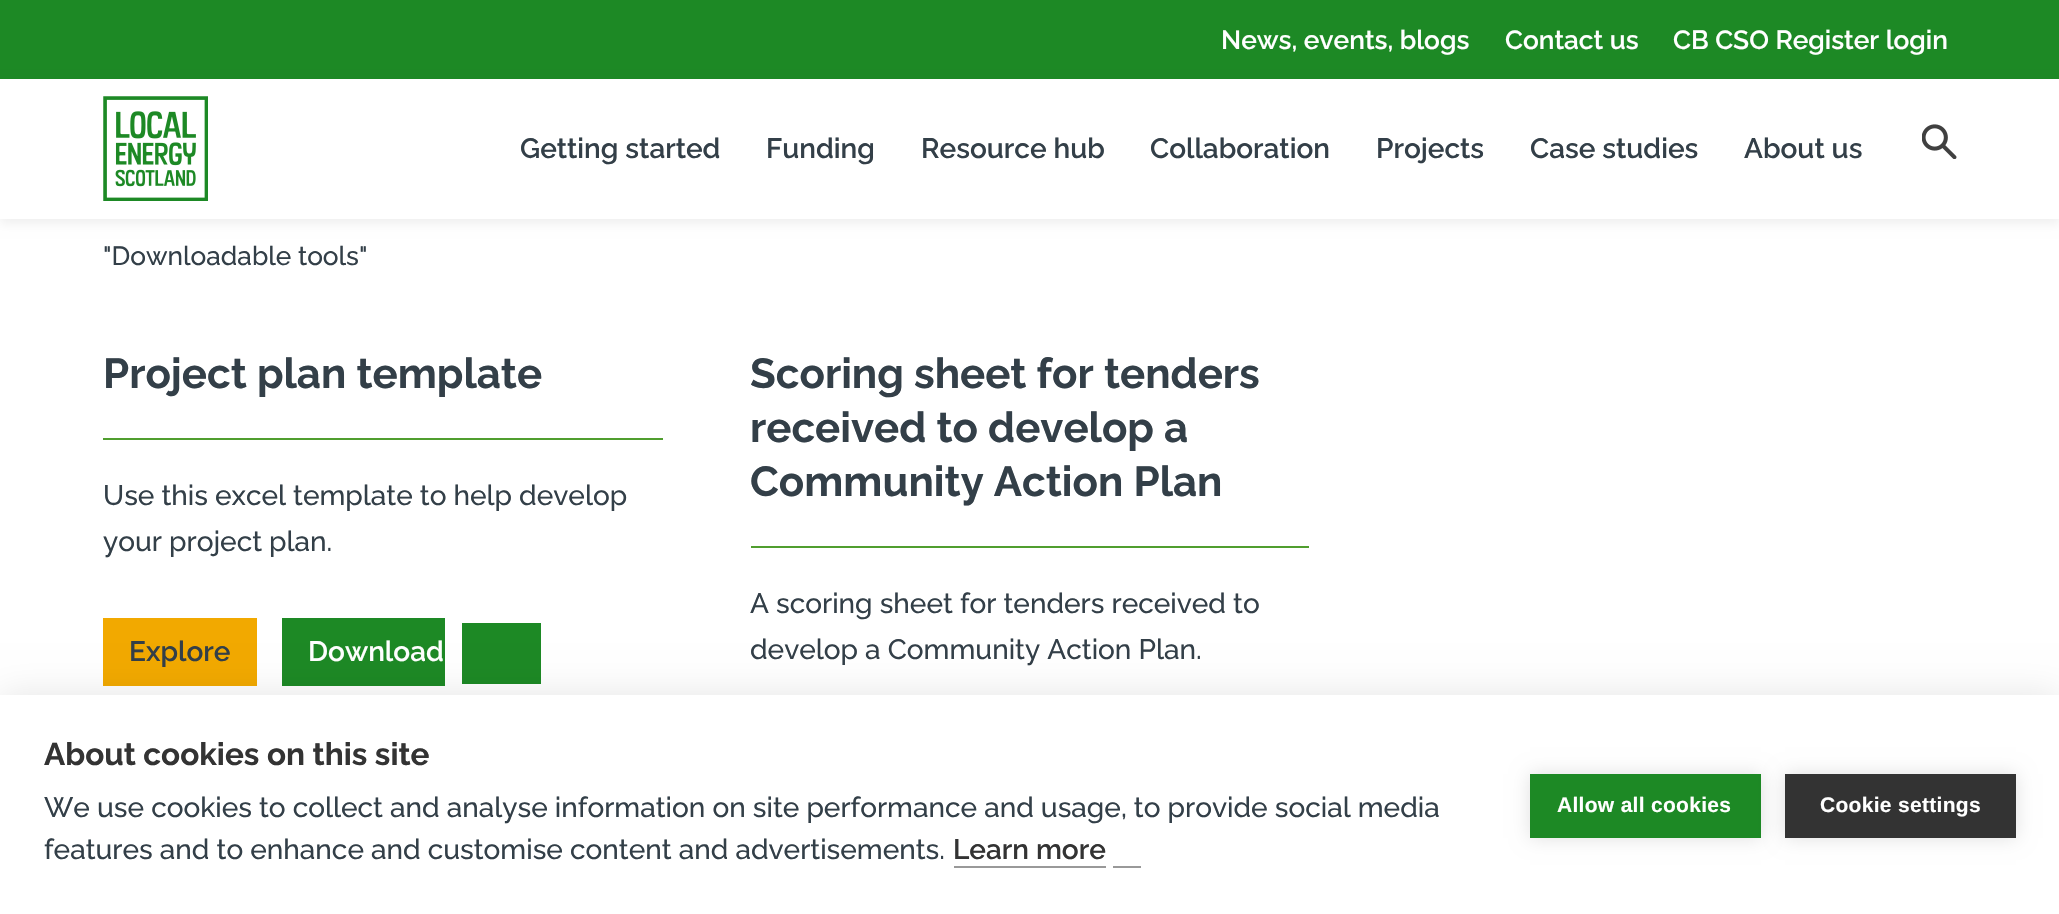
#include "include/core/SkBlurTypes.h"
#include "include/core/SkCanvas.h"
#include "include/core/SkData.h"
#include "include/core/SkFont.h"
#include "include/core/SkFontMgr.h"
#include "include/core/SkImage.h"
#include "include/core/SkMaskFilter.h"
#include "include/core/SkPaint.h"
#include "include/core/SkPathBuilder.h"
#include "include/core/SkTextBlob.h"
#include "include/effects/SkDashPathEffect.h"
#include "include/effects/SkGradientShader.h"
#include "include/utils/SkParsePath.h"

extern sk_sp<SkFontMgr> fontMgr;

void draw(SkCanvas* canvas) {
    SkPaint p;
    p.setAntiAlias(true);
    auto font = [&](const char* family, int weight, float size, bool italic = false) {
        SkFontStyle style(weight, SkFontStyle::kNormal_Width,
            italic ? SkFontStyle::kItalic_Slant : SkFontStyle::kUpright_Slant);
        SkFont result(fontMgr->matchFamilyStyle(family, style), size);
        result.setSubpixel(true);
        return result;
    };
    auto drawTracked = [&](const char* s, float x, float y, const SkFont& font, const SkPaint& ink, float letter, float word) {
        std::vector<SkGlyphID> glyphs(font.countText(s, strlen(s), SkTextEncoding::kUTF8));
        std::vector<float> xs(glyphs.size());
        font.textToGlyphs(s, strlen(s), SkTextEncoding::kUTF8, glyphs);
        font.getXPos(glyphs, xs, x);
        float extra = 0;
        for (size_t i = 0; i < glyphs.size(); i++) {
            xs[i] += extra;
            extra += letter + word * (glyphs[i] == font.unicharToGlyph(' '));
        }
        canvas->drawTextBlob(SkTextBlob::MakeFromPosHGlyphs(glyphs, xs, y, font), 0, 0, ink);
    };
    auto drawPhoto = [&](const char* path, float l, float t, float r, float b) {
        auto image = SkImages::DeferredFromEncodedData(SkData::MakeFromFileName(path));
        canvas->drawImageRect(image, SkRect::MakeLTRB(l, t, r, b), SkSamplingOptions());
    };
    canvas->clear(0xFFFFFFFF);
    p.setColor(0xFF1D8925);
    canvas->drawRect(SkRect::MakeLTRB(0, 0, 2059, 79), p);
    auto font1 = font("Raleway", 600, 26.25f);
    p.setColor(0xFFFFFFFF);
    {
        const struct { const char* s; float x, y; } items[] = {
            {"News, events, blogs", 1221, 49},
            {"Contact us", 1505, 49},
            {"CB CSO Register login", 1673, 49},
        };
        for (auto [s, x, y] : items) {
            canvas->drawString(s, x, y, font1, p);
        }
    }
    p.setColor(0x0F000000);
    p.setMaskFilter(SkMaskFilter::MakeBlur(kNormal_SkBlurStyle, 5));
    canvas->drawRect(SkRect::MakeLTRB(0, 84, 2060, 224), p);
    p.setMaskFilter(nullptr);
    p.setColor(0xFFFFFFFF);
    canvas->drawRect(SkRect::MakeLTRB(0, 79, 2059, 219), p);
    drawPhoto("media/1.png", 103, 96, 208, 201);
    auto font2 = font("Raleway", 600, 28);
    p.setColor(0xFF333F48);
    {
        const struct { const char* s; float x, y; } items[] = {
            {"Getting started", 520, 158},
            {"Funding", 766, 158},
            {"Resource hub", 921, 158},
            {"Collaboration", 1150, 158},
            {"Projects", 1376, 158},
            {"Case studies", 1530, 158},
            {"About us", 1744, 158},
        };
        for (auto [s, x, y] : items) {
            canvas->drawString(s, x, y, font2, p);
        }
    }
    drawPhoto("media/2.png", 1922, 124, 1957, 159);
    auto font3 = font("Raleway", 500, 26.25f);
    canvas->drawString("\"Downloadable tools\"", 103, 265, font3, p);
    p.setColor(0xFF509E2F);
    canvas->drawRect(SkRect::MakeLTRB(103, 438, 663, 440), p);
    auto font4 = font("Raleway", 700, 42);
    p.setColor(0xFF333F48);
    canvas->drawString("Project plan template", 103, 388, font4, p);
    auto font5 = font("Raleway", 500, 28);
    canvas->drawString("Use this excel template to help develop", 103, 505, font5, p);
    canvas->drawString("your project plan.", 103, 551, font5, p);
    p.setColor(0xFFF2A900);
    canvas->drawRect(SkRect::MakeLTRB(103, 618, 257, 686), p);
    p.setColor(0xFF333F48);
    canvas->drawString("Explore", 129, 661, font2, p);
    p.setColor(0xFF1D8925);
    canvas->drawRect(SkRect::MakeLTRB(282, 618, 445, 686), p);
    p.setColor(0xFFFFFFFF);
    canvas->drawString("Download", 308, 661, font2, p);
    p.setColor(0xFF1D8925);
    canvas->drawRect(SkRect::MakeLTRB(462, 623, 541, 684), p);
    p.setColor(0xFF509E2F);
    canvas->drawRect(SkRect::MakeLTRB(751, 546, 1309, 548), p);
    p.setColor(0xFF333F48);
    {
        const struct { const char* s; float x, y; } items[] = {
            {"Scoring sheet for tenders", 750, 388},
            {"received to develop a", 750, 442},
            {"Community Action Plan", 750, 496},
        };
        for (auto [s, x, y] : items) {
            canvas->drawString(s, x, y, font4, p);
        }
    }
    canvas->drawString("A scoring sheet for tenders received to", 750, 613, font5, p);
    canvas->drawString("develop a Community Action Plan.", 750, 659, font5, p);
    p.setColor(0x1A000000);
    p.setMaskFilter(SkMaskFilter::MakeBlur(kNormal_SkBlurStyle, 17.5f));
    canvas->drawRect(SkRect::MakeLTRB(0, 695, 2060, 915), p);
    p.setMaskFilter(nullptr);
    p.setColor(0xFFFFFFFF);
    canvas->drawRect(SkRect::MakeLTRB(0, 695, 2059, 914), p);
    auto font6 = font("Raleway", 700, 31.5f);
    p.setColor(0xFF333333);
    canvas->drawString("About cookies on this site", 44, 765, font6, p);
    p.setColor(0xFF333F48);
    canvas->drawString("We use cookies to collect and analyse information on site performance and usage, to provide social media", 44, 817, font5, p);
    canvas->drawString("features and to enhance and customise content and advertisements.", 44, 859, font5, p);
    p.setColor(0xFF333333);
    canvas->drawString("Learn more", 953, 859, font2, p);
    p.setColor(0xFF999999);
    canvas->drawRect(SkRect::MakeLTRB(954, 866, 1106, 868), p);
    canvas->drawRect(SkRect::MakeLTRB(1113, 866, 1141, 868), p);
    p.setColor(0x1F000000);
    p.setMaskFilter(SkMaskFilter::MakeBlur(kNormal_SkBlurStyle, 9));
    canvas->drawRect(SkRect::MakeLTRB(1530, 774, 1761, 838), p);
    p.setMaskFilter(nullptr);
    p.setColor(0xFF1D8925);
    canvas->drawRect(SkRect::MakeLTRB(1530, 774, 1761, 838), p);
    auto font7 = font("Liberation Sans", 700, 21);
    p.setColor(0xFFFFFFFF);
    drawTracked("Allow all cookies", 1557, 812, font7, p, 0.3f, 0);
    p.setColor(0x1F000000);
    p.setMaskFilter(SkMaskFilter::MakeBlur(kNormal_SkBlurStyle, 9));
    canvas->drawRect(SkRect::MakeLTRB(1785, 774, 2016, 838), p);
    p.setMaskFilter(nullptr);
    p.setColor(0xFF333333);
    canvas->drawRect(SkRect::MakeLTRB(1785, 774, 2016, 838), p);
    p.setColor(0xFFFFFFFF);
    drawTracked("Cookie settings", 1820, 812, font7, p, 0.3f, 0);
}
